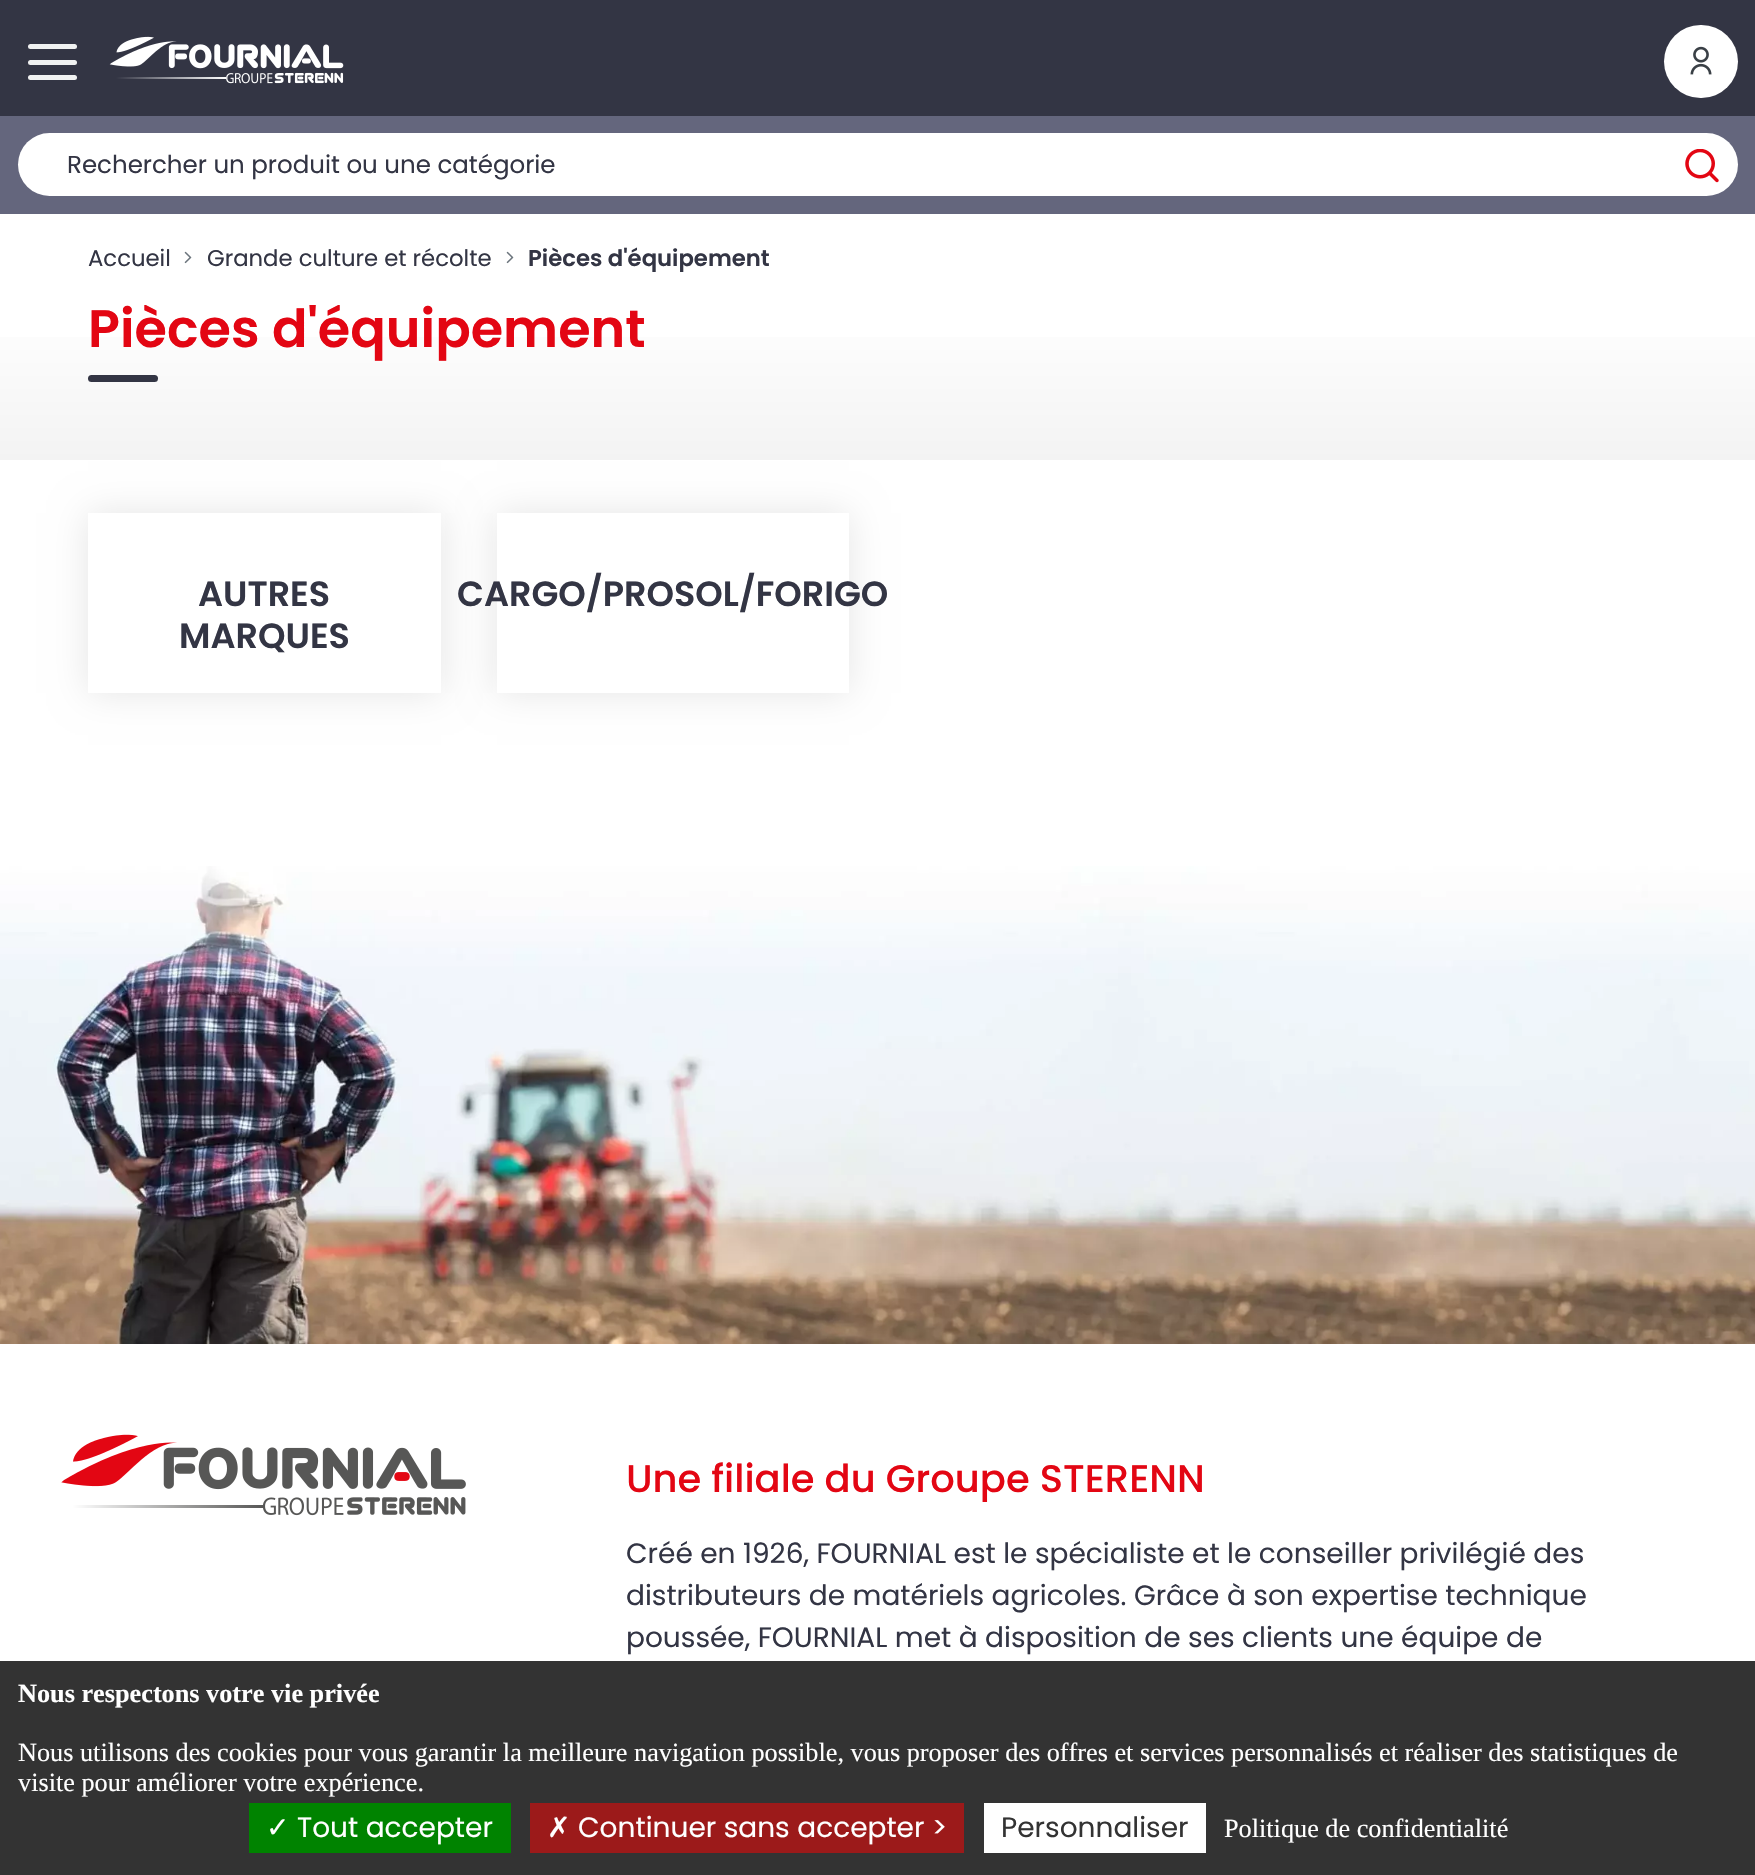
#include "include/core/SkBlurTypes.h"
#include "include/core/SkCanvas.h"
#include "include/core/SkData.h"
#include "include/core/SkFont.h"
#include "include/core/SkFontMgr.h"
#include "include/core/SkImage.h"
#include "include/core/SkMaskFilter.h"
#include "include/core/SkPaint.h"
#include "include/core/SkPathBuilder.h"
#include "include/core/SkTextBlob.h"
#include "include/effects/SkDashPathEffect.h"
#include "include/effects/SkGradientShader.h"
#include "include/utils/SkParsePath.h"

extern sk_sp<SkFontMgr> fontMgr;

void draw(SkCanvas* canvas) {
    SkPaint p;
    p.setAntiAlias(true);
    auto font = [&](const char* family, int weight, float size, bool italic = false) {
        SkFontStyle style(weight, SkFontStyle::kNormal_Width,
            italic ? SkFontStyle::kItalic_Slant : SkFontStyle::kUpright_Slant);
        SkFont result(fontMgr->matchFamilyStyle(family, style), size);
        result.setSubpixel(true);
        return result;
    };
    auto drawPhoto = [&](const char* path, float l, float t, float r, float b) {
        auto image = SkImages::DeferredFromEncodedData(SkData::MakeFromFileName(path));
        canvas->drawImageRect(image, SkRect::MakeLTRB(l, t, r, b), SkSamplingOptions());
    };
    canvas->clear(0xFFFFFFFF);
    p.setColor(0xFF333544);
    canvas->drawRect(SkRect::MakeLTRB(0, 0, 1755, 116), p);
    p.setColor(0xFFF0F1F1);
    canvas->drawRoundRect(SkRect::MakeLTRB(28, 44, 77, 49), 2.5f, 2.5f, p);
    canvas->drawRoundRect(SkRect::MakeLTRB(28, 60, 77, 65), 2.5f, 2.5f, p);
    canvas->drawRoundRect(SkRect::MakeLTRB(28, 75, 77, 80), 2.5f, 2.5f, p);
    drawPhoto("media/1.png", 109, 36, 344, 84);
    p.setColor(0xFFFFFFFF);
    canvas->drawRoundRect(SkRect::MakeLTRB(1664, 25, 1738, 98), 36.5f, 36.5f, p);
    drawPhoto("media/2.png", 1690, 46, 1712, 75);
    p.setColor(0xFF64667D);
    canvas->drawRect(SkRect::MakeLTRB(0, 116, 1755, 214), p);
    p.setColor(0xFFFFFFFF);
    canvas->drawRoundRect(SkRect::MakeLTRB(18, 133, 1738, 196), 31.5f, 31.5f, p);
    auto font1 = font("Poppins", 400, 24.5f);
    p.setColor(0xFF333544);
    canvas->drawString("Rechercher un produit ou une catégorie", 67, 173, font1, p);
    drawPhoto("media/3.png", 1685, 149, 1719, 183);
    auto font2 = font("Poppins", 400, 22.75f);
    canvas->drawString("Accueil", 88, 266, font2, p);
    drawPhoto("media/4.png", 184, 251, 192, 264);
    canvas->drawString("Grande culture et récolte", 207, 266, font2, p);
    drawPhoto("media/4.png", 506, 251, 514, 264);
    auto font3 = font("Poppins", 600, 22.75f);
    canvas->drawString("Pièces d'équipement", 528, 266, font3, p);
    {
        const SkColor colors[] = {0xFFFFFFFF, 0xFFF3F3F3};
        const float stops[] = {0, 1};
        const SkPoint ends[] = {{878, 304}, {878, 460}};
        p.setShader(SkGradientShader::MakeLinear(ends, colors, stops, 2, SkTileMode::kClamp));
        p.setAlpha(255);
    }
    canvas->drawRect(SkRect::MakeLTRB(0, 337, 1755, 460), p);
    canvas->save();
    canvas->clipRect(SkRect::MakeLTRB(0, 305, 1755, 460));
    auto font4 = font("Poppins", 600, 52.5f);
    p.setShader(nullptr);
    p.setColor(0xFFE30613);
    canvas->drawString("Pièces d'équipement", 88, 347, font4, p);
    canvas->restore();
    p.setColor(0xFF333544);
    canvas->drawRoundRect(SkRect::MakeLTRB(88, 375, 158, 382), 3.5f, 3.5f, p);
    canvas->save();
    canvas->clipPath(SkPathBuilder(SkPathFillType::kEvenOdd).moveTo(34, 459).lineTo(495, 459).lineTo(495, 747).lineTo(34, 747).close().moveTo(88, 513).lineTo(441, 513).lineTo(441, 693).lineTo(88, 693).close().detach(), true);
    p.setColor(0x1A000000);
    p.setMaskFilter(SkMaskFilter::MakeBlur(kNormal_SkBlurStyle, 17.5f));
    canvas->drawRect(SkRect::MakeLTRB(88, 513, 441, 693), p);
    p.setMaskFilter(nullptr);
    canvas->restore();
    auto font5 = font("Poppins", 600, 35);
    p.setColor(0xFF333544);
    canvas->drawString("AUTRES", 198, 606, font5, p);
    canvas->drawString("MARQUES", 179, 648, font5, p);
    canvas->save();
    canvas->clipPath(SkPathBuilder(SkPathFillType::kEvenOdd).moveTo(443, 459).lineTo(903, 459).lineTo(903, 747).lineTo(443, 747).close().moveTo(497, 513).lineTo(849, 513).lineTo(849, 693).lineTo(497, 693).close().detach(), true);
    p.setColor(0x1A000000);
    p.setMaskFilter(SkMaskFilter::MakeBlur(kNormal_SkBlurStyle, 17.5f));
    canvas->drawRect(SkRect::MakeLTRB(497, 513, 849, 693), p);
    p.setMaskFilter(nullptr);
    canvas->restore();
    p.setColor(0xFF333544);
    canvas->drawString("CARGO/PROSOL/FORIGO", 457, 606, font5, p);
    drawPhoto("media/5.png", 0, 866, 1755, 1344);
    drawPhoto("media/6.png", 61, 1434, 466, 1516);
    auto font6 = font("Poppins", 500, 38.5f);
    p.setColor(0xFFE30613);
    canvas->drawString("Une filiale du Groupe STERENN", 626, 1492, font6, p);
    auto font7 = font("Poppins", 400, 28);
    p.setColor(0xFF333544);
    {
        const struct { const char* s; float x, y; } items[] = {
            {"Créé en 1926, FOURNIAL est le spécialiste et le conseiller privilégié des", 626, 1563},
            {"distributeurs de matériels agricoles. Grâce à son expertise technique", 626, 1605},
            {"poussée, FOURNIAL met à disposition de ses clients une équipe de", 626, 1647},
        };
        for (auto [s, x, y] : items) {
            canvas->drawString(s, x, y, font7, p);
        }
    }
    p.setColor(0xFF333333);
    canvas->drawRect(SkRect::MakeLTRB(0, 1661, 1755, 1875), p);
    auto font8 = font("Liberation Serif", 700, 26.25f);
    p.setColor(0xFFFFFFFF);
    canvas->drawString("Nous respectons votre vie privée", 18, 1702, font8, p);
    auto font9 = font("Liberation Serif", 400, 26.25f);
    canvas->drawString("Nous utilisons des cookies pour vous garantir la meilleure navigation possible, vous proposer des offres et services personnalisés et réaliser des statistiques de", 18, 1761, font9, p);
    canvas->drawString("visite pour améliorer votre expérience.", 18, 1791, font9, p);
    p.setColor(0xFF008300);
    canvas->drawRect(SkRect::MakeLTRB(249, 1803, 511, 1853), p);
    auto font10 = font("DejaVu Sans", 400, 28);
    p.setColor(0xFFFFFFFF);
    canvas->drawString("✓", 266, 1837, font10, p);
    canvas->drawString("Tout accepter", 297, 1837, font7, p);
    p.setColor(0xFF9C1A1A);
    canvas->drawRect(SkRect::MakeLTRB(530, 1803, 964, 1853), p);
    p.setColor(0xFFFFFFFF);
    canvas->drawString("✗", 547, 1837, font10, p);
    canvas->drawString("Continuer sans accepter >", 578, 1837, font7, p);
    canvas->drawRect(SkRect::MakeLTRB(984, 1803, 1206, 1853), p);
    p.setColor(0xFF333333);
    canvas->drawString("Personnaliser", 1001, 1837, font7, p);
    p.setColor(0xFFFFFFFF);
    canvas->drawString("Politique de confidentialité", 1224, 1837, font9, p);
}
